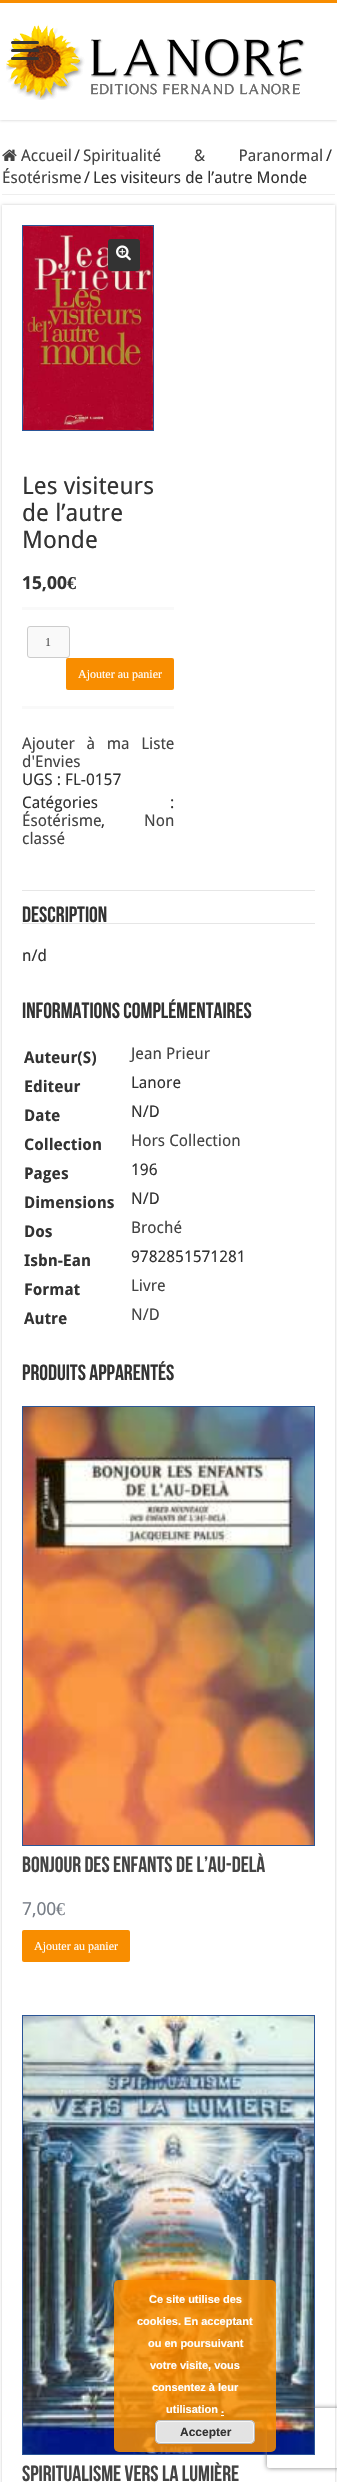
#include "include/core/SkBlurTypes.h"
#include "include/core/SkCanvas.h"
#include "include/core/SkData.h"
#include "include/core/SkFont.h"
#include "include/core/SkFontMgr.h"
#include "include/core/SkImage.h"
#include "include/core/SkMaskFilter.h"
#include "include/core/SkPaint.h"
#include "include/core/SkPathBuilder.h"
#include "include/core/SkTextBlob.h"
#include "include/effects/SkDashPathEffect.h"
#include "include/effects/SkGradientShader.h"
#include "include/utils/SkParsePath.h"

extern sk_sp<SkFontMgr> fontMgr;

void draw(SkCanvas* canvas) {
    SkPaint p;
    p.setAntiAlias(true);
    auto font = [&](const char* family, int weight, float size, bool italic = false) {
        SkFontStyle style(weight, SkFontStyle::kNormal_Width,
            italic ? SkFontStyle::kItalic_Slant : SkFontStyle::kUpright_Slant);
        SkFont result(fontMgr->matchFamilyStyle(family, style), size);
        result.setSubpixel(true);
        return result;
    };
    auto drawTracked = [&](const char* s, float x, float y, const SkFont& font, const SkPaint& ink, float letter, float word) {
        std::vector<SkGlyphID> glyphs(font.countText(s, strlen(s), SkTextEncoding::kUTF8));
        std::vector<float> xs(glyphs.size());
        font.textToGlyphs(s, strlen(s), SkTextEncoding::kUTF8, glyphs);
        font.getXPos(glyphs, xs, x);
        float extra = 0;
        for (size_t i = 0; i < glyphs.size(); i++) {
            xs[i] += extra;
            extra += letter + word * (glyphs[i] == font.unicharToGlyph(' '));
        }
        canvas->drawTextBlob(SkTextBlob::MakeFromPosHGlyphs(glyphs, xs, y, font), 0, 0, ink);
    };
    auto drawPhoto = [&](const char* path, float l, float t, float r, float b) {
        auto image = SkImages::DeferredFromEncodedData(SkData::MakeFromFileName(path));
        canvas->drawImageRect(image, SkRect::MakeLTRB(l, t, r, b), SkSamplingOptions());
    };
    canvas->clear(0xFFFFFFFF);
    canvas->save();
    canvas->clipRect(SkRect::MakeLTRB(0, 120, 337, 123));
    p.setColor(0xFFCACACA);
    p.setMaskFilter(SkMaskFilter::MakeBlur(kNormal_SkBlurStyle, 1.5f));
    canvas->drawRect(SkRect::MakeLTRB(0, 0, 337, 120), p);
    p.setMaskFilter(nullptr);
    canvas->restore();
    p.setColor(0xFFF88D00);
    canvas->drawRect(SkRect::MakeLTRB(0, 0, 337, 3), p);
    drawPhoto("media/1.png", 6, 24, 305, 100);
    p.setColor(0xFF333333);
    canvas->drawRoundRect(SkRect::MakeLTRB(11, 41, 39, 44), 1.5f, 1.5f, p);
    canvas->drawRoundRect(SkRect::MakeLTRB(11, 49, 39, 52), 1.5f, 1.5f, p);
    canvas->drawRoundRect(SkRect::MakeLTRB(11, 57, 39, 60), 1.5f, 1.5f, p);
    p.setColor(0xFFEEEEEE);
    canvas->drawRect(SkRect::MakeLTRB(2, 194, 335, 195), p);
    drawPhoto("media/2.png", 2, 149, 17, 161);
    auto font1 = font("Droid Sans", 400, 16);
    p.setColor(0xFF444444);
    canvas->drawString("Accueil", 21, 161, font1, p);
    p.setColor(0xFF333333);
    canvas->drawString("/", 74, 161, font1, p);
    p.setColor(0xFF444444);
    drawTracked("Spiritualité & Paranormal", 83, 161, font1, p, 0, 29);
    p.setColor(0xFF333333);
    canvas->drawString("/", 326, 161, font1, p);
    p.setColor(0xFF444444);
    canvas->drawString("Ésotérisme", 2, 183, font1, p);
    p.setColor(0xFF333333);
    canvas->drawString("/", 84, 183, font1, p);
    canvas->drawString("Les visiteurs de l’autre Monde", 93, 183, font1, p);
    canvas->save();
    canvas->clipPath(SkPathBuilder(SkPathFillType::kEvenOdd).moveTo(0, 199).lineTo(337, 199).lineTo(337, 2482).lineTo(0, 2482).close().moveTo(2, 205).lineTo(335, 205).lineTo(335, 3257).lineTo(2, 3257).close().detach(), true);
    p.setColor(0xFFCACACA);
    p.setMaskFilter(SkMaskFilter::MakeBlur(kNormal_SkBlurStyle, 1.5f));
    canvas->drawRect(SkRect::MakeLTRB(2, 205, 335, 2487), p);
    p.setMaskFilter(nullptr);
    canvas->restore();
    p.setStyle(SkPaint::kStroke_Style);
    p.setStrokeWidth(1);
    p.setColor(0xFF2A5596);
    canvas->drawRect(SkRect::MakeLTRB(22.5f, 225.5f, 153.5f, 430.5f), p);
    drawPhoto("media/3.png", 23, 226, 153, 430);
    p.setStyle(SkPaint::kFill_Style);
    p.setColor(0xFF333333);
    canvas->drawRoundRect(SkRect::MakeLTRB(108, 239, 140, 271), 3, 3, p);
    drawPhoto("media/4.png", 116, 245, 131, 261);
    auto font2 = font("Droid Sans", 400, 24);
    {
        const struct { const char* s; float x, y; } items[] = {
            {"Les visiteurs", 22, 494},
            {"de l’autre", 22, 521},
            {"Monde", 22, 548},
        };
        for (auto [s, x, y] : items) {
            canvas->drawString(s, x, y, font2, p);
        }
    }
    auto font3 = font("Droid Sans", 700, 18);
    canvas->drawString("15,00", 22, 589, font3, p);
    auto font4 = font("Liberation Serif", 700, 18);
    canvas->drawString("€", 67, 589, font4, p);
    p.setColor(0xFFF9F9F9);
    canvas->drawRect(SkRect::MakeLTRB(22, 607, 174, 610), p);
    canvas->drawRect(SkRect::MakeLTRB(22, 706, 174, 709), p);
    canvas->drawRoundRect(SkRect::MakeLTRB(27.5f, 626.5f, 69.5f, 657.5f), 2.5f, 2.5f, p);
    p.setStyle(SkPaint::kStroke_Style);
    p.setColor(0xFFCCCCCC);
    canvas->drawRoundRect(SkRect::MakeLTRB(27.5f, 626.5f, 69.5f, 657.5f), 2.5f, 2.5f, p);
    auto font5 = font("Liberation Serif", 400, 12);
    p.setStyle(SkPaint::kFill_Style);
    p.setColor(0xFF515151);
    canvas->drawString("1", 45, 646, font5, p);
    p.setColor(0xFFF88D00);
    canvas->drawRoundRect(SkRect::MakeLTRB(66, 658, 174, 690), 2, 2, p);
    p.setColor(0xFFFFFFFF);
    canvas->drawString("Ajouter au panier", 78, 678, font5, p);
    p.setColor(0xFF444444);
    drawTracked("Ajouter à ma Liste", 22, 749, font1, p, 0, 7.5f);
    canvas->drawString("d'Envies", 22, 767, font1, p);
    p.setColor(0xFF333333);
    canvas->drawString("UGS : FL-0157", 22, 785, font1, p);
    canvas->drawString("Catégories", 22, 808, font1, p);
    canvas->drawString(":", 170, 808, font1, p);
    p.setColor(0xFF444444);
    canvas->drawString("Ésotérisme", 22, 826, font1, p);
    p.setColor(0xFF333333);
    canvas->drawString(",", 101, 826, font1, p);
    p.setColor(0xFF444444);
    canvas->drawString("Non", 144, 826, font1, p);
    canvas->drawString("classé", 22, 844, font1, p);
    p.setColor(0xFFE6E6E6);
    canvas->drawRect(SkRect::MakeLTRB(22, 890, 315, 891), p);
    canvas->drawRect(SkRect::MakeLTRB(22, 923, 315, 924), p);
    auto font6 = font("Bebas Neue", 700, 22);
    p.setColor(0xFF333333);
    canvas->drawString("Description", 22, 922, font6, p);
    canvas->drawString("n/d", 22, 961, font1, p);
    canvas->drawString("Informations complémentaires", 22, 1018, font6, p);
    auto font7 = font("Droid Sans", 700, 16);
    canvas->drawString("Auteur(S)", 24, 1063, font7, p);
    p.setColor(0xFF444444);
    canvas->drawString("Jean Prieur", 131, 1059, font1, p);
    p.setColor(0xFF333333);
    canvas->drawString("Editeur", 24, 1092, font7, p);
    canvas->drawString("Lanore", 131, 1088, font1, p);
    canvas->drawString("Date", 24, 1121, font7, p);
    canvas->drawString("N/D", 131, 1117, font1, p);
    canvas->drawString("Collection", 24, 1150, font7, p);
    p.setColor(0xFF444444);
    canvas->drawString("Hors Collection", 131, 1146, font1, p);
    p.setColor(0xFF333333);
    canvas->drawString("Pages", 24, 1179, font7, p);
    canvas->drawString("196", 131, 1175, font1, p);
    canvas->drawString("Dimensions", 24, 1208, font7, p);
    canvas->drawString("N/D", 131, 1204, font1, p);
    canvas->drawString("Dos", 24, 1237, font7, p);
    p.setColor(0xFF444444);
    canvas->drawString("Broché", 131, 1233, font1, p);
    p.setColor(0xFF333333);
    canvas->drawString("Isbn-Ean", 24, 1266, font7, p);
    canvas->drawString("9782851571281", 131, 1262, font1, p);
    canvas->drawString("Format", 24, 1295, font7, p);
    p.setColor(0xFF444444);
    canvas->drawString("Livre", 131, 1291, font1, p);
    p.setColor(0xFF333333);
    canvas->drawString("Autre", 24, 1324, font7, p);
    p.setColor(0xFF444444);
    canvas->drawString("N/D", 131, 1320, font1, p);
    p.setColor(0xFF333333);
    canvas->drawString("Produits apparentés", 22, 1380, font6, p);
    p.setStyle(SkPaint::kStroke_Style);
    p.setColor(0xFF2A5596);
    canvas->drawRect(SkRect::MakeLTRB(22.5f, 1406.5f, 314.5f, 1845.5f), p);
    drawPhoto("media/5.png", 23, 1407, 314, 1845);
    p.setStyle(SkPaint::kFill_Style);
    p.setColor(0xFF444444);
    canvas->drawString("Bonjour des enfants de l’Au-Delà", 22, 1872, font6, p);
    auto font8 = font("Droid Sans", 400, 18);
    p.setColor(0xFF787E87);
    canvas->drawString("7,00", 22, 1915, font8, p);
    auto font9 = font("Liberation Serif", 400, 18);
    canvas->drawString("€", 56, 1915, font9, p);
    p.setColor(0xFFF88D00);
    canvas->drawRoundRect(SkRect::MakeLTRB(22, 1930, 130, 1962), 2, 2, p);
    p.setColor(0xFFFFFFFF);
    canvas->drawString("Ajouter au panier", 34, 1950, font5, p);
    p.setStyle(SkPaint::kStroke_Style);
    p.setColor(0xFF2A5596);
    canvas->drawRect(SkRect::MakeLTRB(22.5f, 2015.5f, 314.5f, 2454.5f), p);
    drawPhoto("media/6.png", 23, 2016, 314, 2454);
    p.setStyle(SkPaint::kFill_Style);
    p.setColor(0xFF444444);
    canvas->drawString("Spiritualisme Vers La Lumière", 22, 2481, font6, p);
    canvas->save();
    canvas->clipPath(SkPathBuilder(SkPathFillType::kEvenOdd).moveTo(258, 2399).lineTo(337, 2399).lineTo(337, 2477).lineTo(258, 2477).close().moveTo(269, 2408).lineTo(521, 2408).cubicTo(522, 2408, 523, 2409, 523, 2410).lineTo(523, 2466).cubicTo(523, 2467, 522, 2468, 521, 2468).lineTo(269, 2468).cubicTo(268, 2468, 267, 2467, 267, 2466).lineTo(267, 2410).cubicTo(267, 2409, 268, 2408, 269, 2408).close().detach(), true);
    p.setColor(0xFF808080);
    p.setMaskFilter(SkMaskFilter::MakeBlur(kNormal_SkBlurStyle, 2.5f));
    canvas->drawRoundRect(SkRect::MakeLTRB(267, 2408, 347, 2468), 2, 2, p);
    p.setMaskFilter(nullptr);
    canvas->restore();
    p.setColor(0xD9F88D00);
    canvas->drawRoundRect(SkRect::MakeLTRB(114, 2280, 276, 2452), 5, 5, p);
    auto font10 = font("Liberation Sans", 700, 11);
    p.setColor(0xFFFFFFFF);
    {
        const struct { const char* s; float x, y; } items[] = {
            {"Ce site utilise des", 149, 2303},
            {"cookies. En acceptant", 137, 2325},
            {"ou en poursuivant", 148, 2347},
            {"votre visite, vous", 150, 2369},
            {"consentez à leur", 152, 2391},
            {"utilisation .", 166, 2413},
        };
        for (auto [s, x, y] : items) {
            canvas->drawString(s, x, y, font10, p);
        }
    }
    canvas->drawRect(SkRect::MakeLTRB(221, 2415, 224, 2416), p);
    p.setColor(0xFFE3E3E3);
    canvas->drawRoundRect(SkRect::MakeLTRB(155, 2420, 255, 2444), 5, 5, p);
    p.setStyle(SkPaint::kStroke_Style);
    p.setColor(0xFFF6F6F6);
    canvas->drawRoundRect(SkRect::MakeLTRB(156.5f, 2421.5f, 253.5f, 2442.5f), 3.5f, 3.5f, p);
    p.setColor(0xFFBBBBBB);
    canvas->drawRoundRect(SkRect::MakeLTRB(155.5f, 2420.5f, 254.5f, 2443.5f), 4.5f, 4.5f, p);
    auto font11 = font("Liberation Sans", 700, 12);
    p.setStyle(SkPaint::kFill_Style);
    p.setColor(0xFF333333);
    canvas->drawString("Accepter", 180, 2436, font11, p);
}
